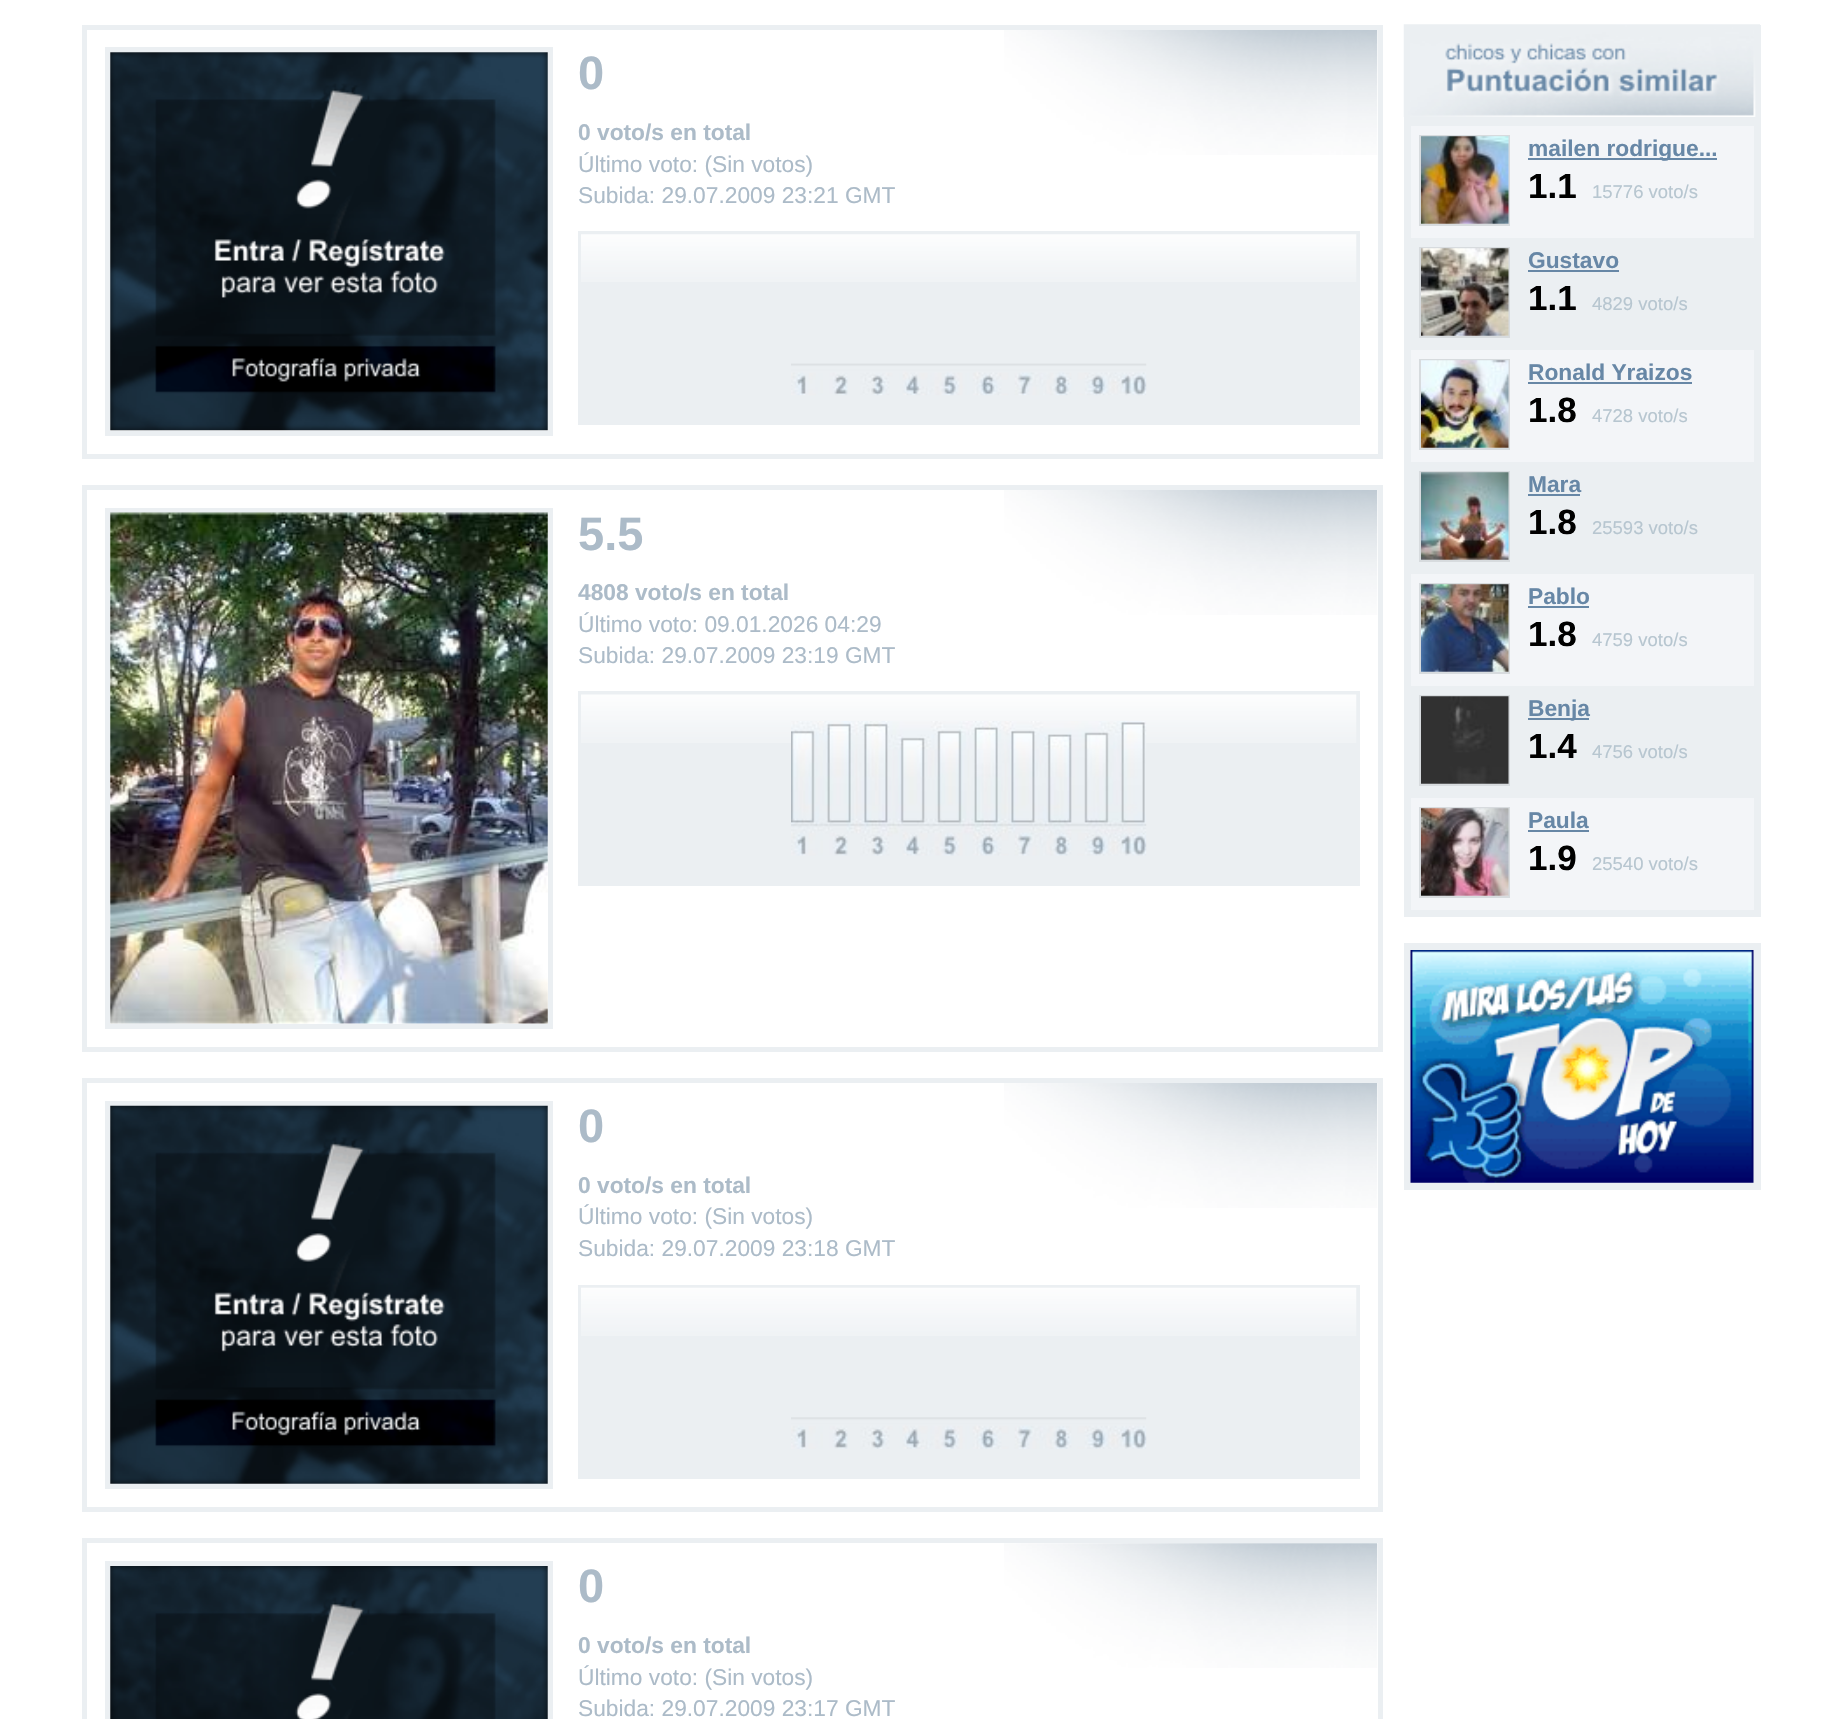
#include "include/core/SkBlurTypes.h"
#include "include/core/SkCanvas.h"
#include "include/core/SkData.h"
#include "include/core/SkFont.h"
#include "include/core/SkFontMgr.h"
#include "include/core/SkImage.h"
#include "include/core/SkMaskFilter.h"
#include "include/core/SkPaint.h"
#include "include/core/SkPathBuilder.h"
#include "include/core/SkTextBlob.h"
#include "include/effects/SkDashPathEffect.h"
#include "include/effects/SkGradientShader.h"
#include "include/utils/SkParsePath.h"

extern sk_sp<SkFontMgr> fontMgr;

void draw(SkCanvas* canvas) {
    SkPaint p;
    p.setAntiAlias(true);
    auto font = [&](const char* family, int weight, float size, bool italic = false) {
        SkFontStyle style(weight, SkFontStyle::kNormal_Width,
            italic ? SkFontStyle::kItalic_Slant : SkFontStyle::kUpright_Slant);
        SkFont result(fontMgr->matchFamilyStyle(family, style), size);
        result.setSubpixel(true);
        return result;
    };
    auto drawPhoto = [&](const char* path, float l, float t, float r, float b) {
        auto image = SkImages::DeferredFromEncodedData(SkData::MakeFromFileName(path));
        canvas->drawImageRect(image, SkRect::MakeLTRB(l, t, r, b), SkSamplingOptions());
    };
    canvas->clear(0xFFFFFFFF);
    drawPhoto("media/1.png", 1004, 30, 1378, 155);
    p.setStyle(SkPaint::kStroke_Style);
    p.setStrokeWidth(5);
    p.setColor(0xFFEBEFF2);
    canvas->drawRect(SkRect::MakeLTRB(84.5f, 27.5f, 1380.5f, 456.5f), p);
    canvas->drawRect(SkRect::MakeLTRB(107.5f, 49.5f, 550.5f, 433.5f), p);
    drawPhoto("media/2.png", 110, 52, 548, 431);
    auto font1 = font("Liberation Sans", 700, 47);
    p.setStyle(SkPaint::kFill_Style);
    p.setColor(0xFFACBBC8);
    canvas->drawString("0", 578, 89, font1, p);
    auto font2 = font("Liberation Sans", 700, 22.75f);
    canvas->drawString("0 voto/s en total", 578, 140, font2, p);
    auto font3 = font("Liberation Sans", 400, 22.75f);
    canvas->drawString("Último voto: (Sin votos)", 578, 172, font3, p);
    canvas->drawString("Subida: 29.07.2009 23:21 GMT", 578, 203, font3, p);
    p.setColor(0xFFEBEFF2);
    canvas->drawRect(SkRect::MakeLTRB(578, 231, 1360, 425), p);
    drawPhoto("media/3.png", 581, 234, 1357, 282);
    drawPhoto("media/4.png", 791, 363, 1147, 396);
    drawPhoto("media/5.png", 1004, 490, 1378, 615);
    p.setStyle(SkPaint::kStroke_Style);
    canvas->drawRect(SkRect::MakeLTRB(84.5f, 487.5f, 1380.5f, 1049.5f), p);
    canvas->drawRect(SkRect::MakeLTRB(107.5f, 510.5f, 550.5f, 1026.5f), p);
    drawPhoto("media/6.png", 110, 512, 548, 1024);
    p.setStyle(SkPaint::kFill_Style);
    p.setColor(0xFFACBBC8);
    canvas->drawString("5.5", 578, 550, font1, p);
    canvas->drawString("4808 voto/s en total", 578, 600, font2, p);
    canvas->drawString("Último voto: 09.01.2026 04:29", 578, 632, font3, p);
    canvas->drawString("Subida: 29.07.2009 23:19 GMT", 578, 663, font3, p);
    p.setColor(0xFFEBEFF2);
    canvas->drawRect(SkRect::MakeLTRB(578, 691, 1360, 886), p);
    drawPhoto("media/7.png", 581, 694, 1357, 743);
    drawPhoto("media/8.png", 791, 721, 1147, 856);
    drawPhoto("media/9.png", 1004, 1083, 1378, 1208);
    p.setStyle(SkPaint::kStroke_Style);
    canvas->drawRect(SkRect::MakeLTRB(84.5f, 1080.5f, 1380.5f, 1509.5f), p);
    canvas->drawRect(SkRect::MakeLTRB(107.5f, 1103.5f, 550.5f, 1486.5f), p);
    drawPhoto("media/10.png", 110, 1105, 548, 1484);
    p.setStyle(SkPaint::kFill_Style);
    p.setColor(0xFFACBBC8);
    canvas->drawString("0", 578, 1142, font1, p);
    canvas->drawString("0 voto/s en total", 578, 1193, font2, p);
    canvas->drawString("Último voto: (Sin votos)", 578, 1224, font3, p);
    canvas->drawString("Subida: 29.07.2009 23:18 GMT", 578, 1256, font3, p);
    p.setColor(0xFFEBEFF2);
    canvas->drawRect(SkRect::MakeLTRB(578, 1285, 1360, 1479), p);
    drawPhoto("media/11.png", 581, 1287, 1357, 1336);
    drawPhoto("media/12.png", 791, 1417, 1147, 1449);
    drawPhoto("media/13.png", 1004, 1543, 1378, 1668);
    p.setStyle(SkPaint::kStroke_Style);
    canvas->drawRect(SkRect::MakeLTRB(84.5f, 1540.5f, 1380.5f, 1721.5f), p);
    canvas->drawRect(SkRect::MakeLTRB(107.5f, 1563.5f, 550.5f, 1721.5f), p);
    drawPhoto("media/14.png", 110, 1566, 548, 1719);
    p.setStyle(SkPaint::kFill_Style);
    p.setColor(0xFFACBBC8);
    canvas->drawString("0", 578, 1602, font1, p);
    canvas->drawString("0 voto/s en total", 578, 1653, font2, p);
    canvas->drawString("Último voto: (Sin votos)", 578, 1685, font3, p);
    canvas->drawString("Subida: 29.07.2009 23:17 GMT", 578, 1716, font3, p);
    p.setColor(0xFFEBEFF2);
    canvas->drawRect(SkRect::MakeLTRB(1404, 25, 1761, 917), p);
    drawPhoto("media/15.png", 1403, 24, 1760, 117);
    p.setColor(0xFFF3F5F8);
    canvas->drawRect(SkRect::MakeLTRB(1411, 126, 1754, 238), p);
    p.setStyle(SkPaint::kStroke_Style);
    p.setStrokeWidth(2);
    p.setColor(0xFFD7DBDE);
    canvas->drawRect(SkRect::MakeLTRB(1420, 136, 1509, 225), p);
    drawPhoto("media/16.png", 1421, 136, 1509, 224);
    p.setStyle(SkPaint::kFill_Style);
    p.setColor(0xFF6787A6);
    canvas->drawRect(SkRect::MakeLTRB(1528, 158, 1717, 160), p);
    canvas->drawString("mailen rodrigue...", 1528, 156, font2, p);
    auto font4 = font("Liberation Sans", 700, 35);
    p.setColor(0xFF000000);
    canvas->drawString("1.1", 1528, 198, font4, p);
    auto font5 = font("Liberation Sans", 400, 18.5f);
    p.setColor(0xFFB7C6D0);
    canvas->drawString("15776 voto/s", 1592, 198, font5, p);
    p.setStyle(SkPaint::kStroke_Style);
    p.setColor(0xFFD7DBDE);
    canvas->drawRect(SkRect::MakeLTRB(1420, 248, 1509, 337), p);
    drawPhoto("media/17.png", 1421, 248, 1509, 336);
    p.setStyle(SkPaint::kFill_Style);
    p.setColor(0xFF6787A6);
    canvas->drawString("Gustavo", 1528, 268, font2, p);
    canvas->drawRect(SkRect::MakeLTRB(1528, 270, 1619, 272), p);
    p.setColor(0xFF000000);
    canvas->drawString("1.1", 1528, 310, font4, p);
    p.setColor(0xFFB7C6D0);
    canvas->drawString("4829 voto/s", 1592, 310, font5, p);
    p.setColor(0xFFF3F5F8);
    canvas->drawRect(SkRect::MakeLTRB(1411, 350, 1754, 462), p);
    p.setStyle(SkPaint::kStroke_Style);
    p.setColor(0xFFD7DBDE);
    canvas->drawRect(SkRect::MakeLTRB(1420, 360, 1509, 449), p);
    drawPhoto("media/18.png", 1421, 360, 1509, 448);
    p.setStyle(SkPaint::kFill_Style);
    p.setColor(0xFF6787A6);
    canvas->drawString("Ronald Yraizos", 1528, 380, font2, p);
    canvas->drawRect(SkRect::MakeLTRB(1528, 382, 1692, 384), p);
    p.setColor(0xFF000000);
    canvas->drawString("1.8", 1528, 422, font4, p);
    p.setColor(0xFFB7C6D0);
    canvas->drawString("4728 voto/s", 1592, 422, font5, p);
    p.setStyle(SkPaint::kStroke_Style);
    p.setColor(0xFFD7DBDE);
    canvas->drawRect(SkRect::MakeLTRB(1420, 472, 1509, 561), p);
    drawPhoto("media/19.png", 1421, 472, 1509, 560);
    p.setStyle(SkPaint::kFill_Style);
    p.setColor(0xFF6787A6);
    canvas->drawString("Mara", 1528, 492, font2, p);
    canvas->drawRect(SkRect::MakeLTRB(1528, 494, 1580, 496), p);
    p.setColor(0xFF000000);
    canvas->drawString("1.8", 1528, 534, font4, p);
    p.setColor(0xFFB7C6D0);
    canvas->drawString("25593 voto/s", 1592, 534, font5, p);
    p.setColor(0xFFF3F5F8);
    canvas->drawRect(SkRect::MakeLTRB(1411, 574, 1754, 686), p);
    p.setStyle(SkPaint::kStroke_Style);
    p.setColor(0xFFD7DBDE);
    canvas->drawRect(SkRect::MakeLTRB(1420, 584, 1509, 673), p);
    drawPhoto("media/20.png", 1421, 584, 1509, 672);
    p.setStyle(SkPaint::kFill_Style);
    p.setColor(0xFF6787A6);
    canvas->drawString("Pablo", 1528, 604, font2, p);
    canvas->drawRect(SkRect::MakeLTRB(1528, 606, 1589, 608), p);
    p.setColor(0xFF000000);
    canvas->drawString("1.8", 1528, 646, font4, p);
    p.setColor(0xFFB7C6D0);
    canvas->drawString("4759 voto/s", 1592, 646, font5, p);
    p.setStyle(SkPaint::kStroke_Style);
    p.setColor(0xFFD7DBDE);
    canvas->drawRect(SkRect::MakeLTRB(1420, 696, 1509, 785), p);
    drawPhoto("media/21.png", 1421, 696, 1509, 784);
    p.setStyle(SkPaint::kFill_Style);
    p.setColor(0xFF6787A6);
    canvas->drawRect(SkRect::MakeLTRB(1528, 718, 1589, 720), p);
    canvas->drawString("Benja", 1528, 716, font2, p);
    p.setColor(0xFF000000);
    canvas->drawString("1.4", 1528, 758, font4, p);
    p.setColor(0xFFB7C6D0);
    canvas->drawString("4756 voto/s", 1592, 758, font5, p);
    p.setColor(0xFFF3F5F8);
    canvas->drawRect(SkRect::MakeLTRB(1411, 798, 1754, 910), p);
    p.setStyle(SkPaint::kStroke_Style);
    p.setColor(0xFFD7DBDE);
    canvas->drawRect(SkRect::MakeLTRB(1420, 808, 1509, 897), p);
    drawPhoto("media/22.png", 1421, 808, 1509, 896);
    p.setStyle(SkPaint::kFill_Style);
    p.setColor(0xFF6787A6);
    canvas->drawString("Paula", 1528, 828, font2, p);
    canvas->drawRect(SkRect::MakeLTRB(1528, 830, 1589, 832), p);
    p.setColor(0xFF000000);
    canvas->drawString("1.9", 1528, 870, font4, p);
    p.setColor(0xFFB7C6D0);
    canvas->drawString("25540 voto/s", 1592, 870, font5, p);
    p.setColor(0xFFEBEFF2);
    canvas->drawRect(SkRect::MakeLTRB(1404, 943, 1761, 1190), p);
    drawPhoto("media/23.png", 1410, 950, 1754, 1183);
}
